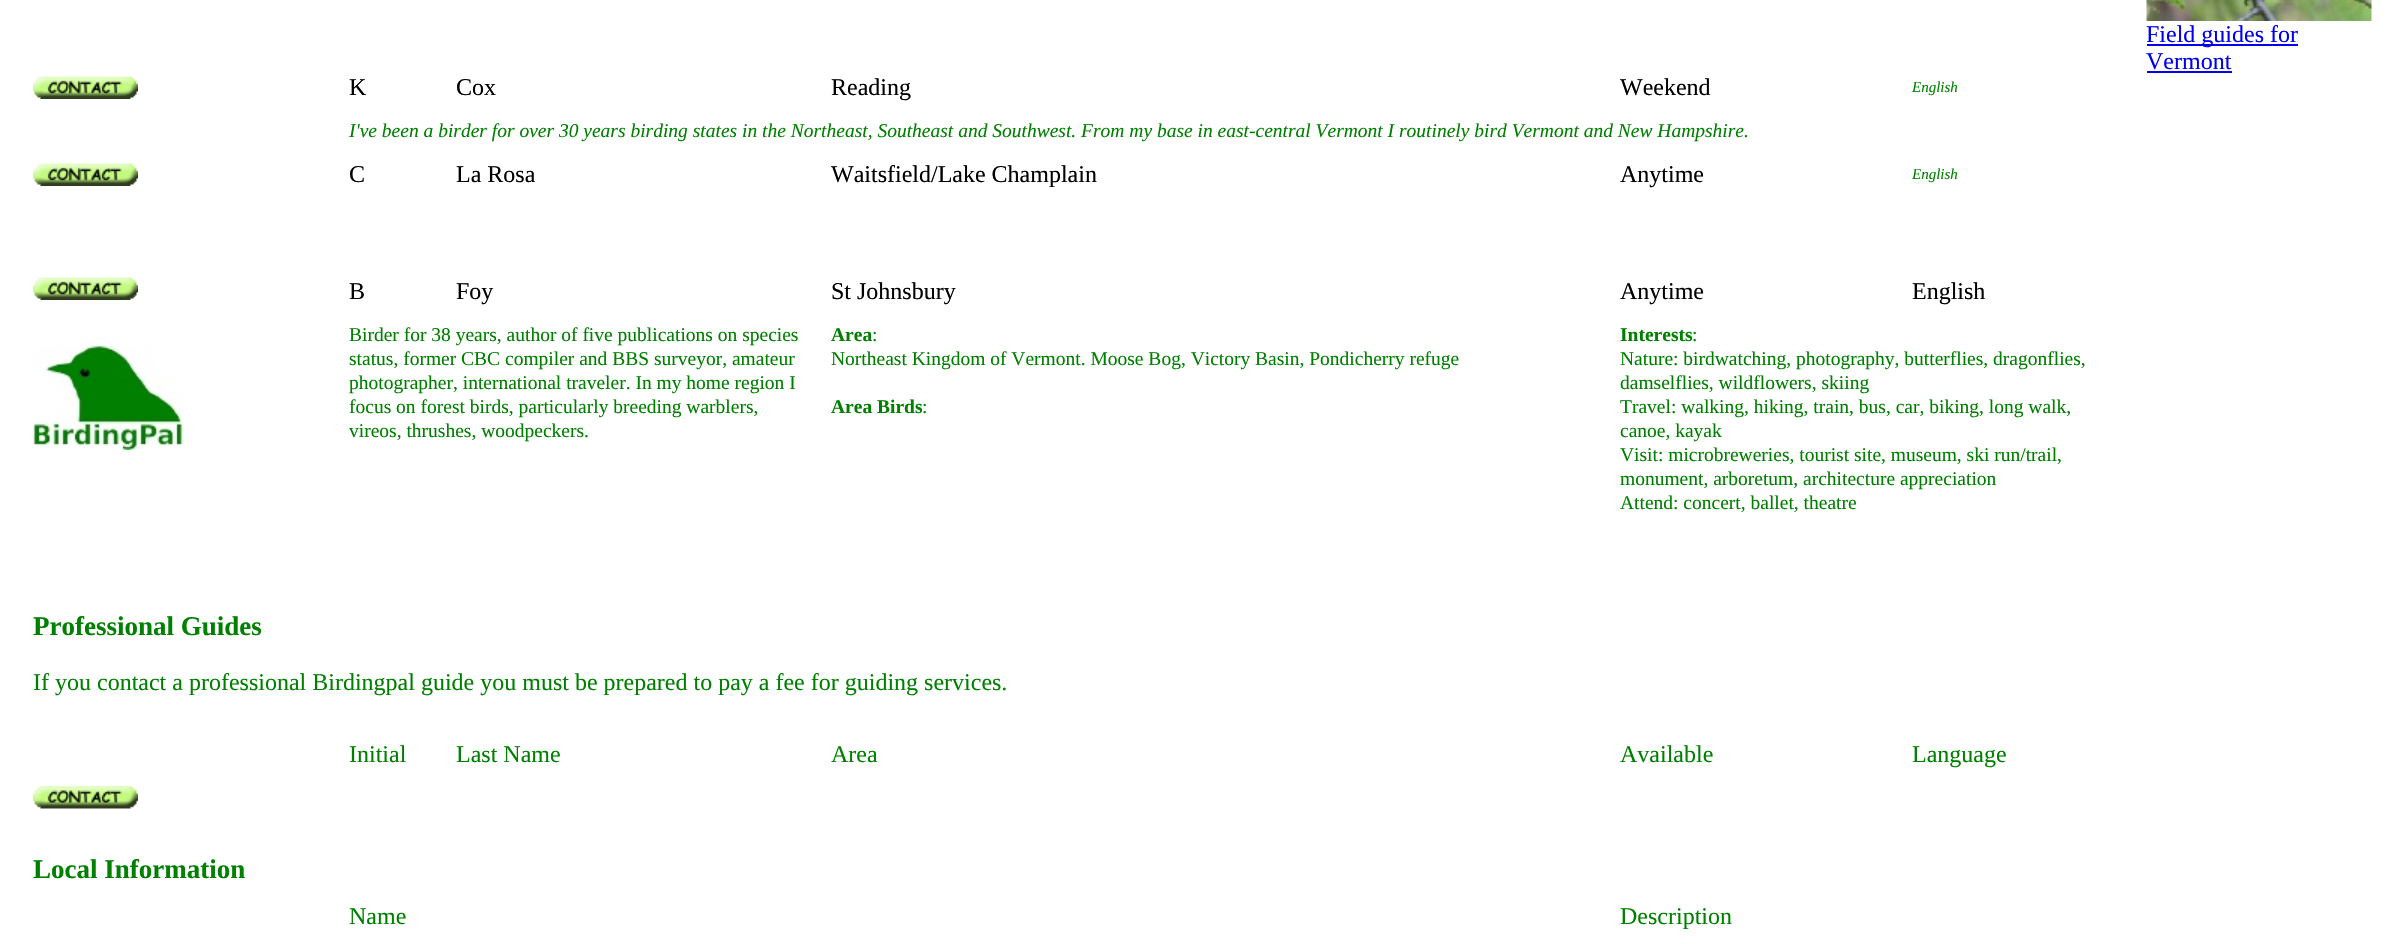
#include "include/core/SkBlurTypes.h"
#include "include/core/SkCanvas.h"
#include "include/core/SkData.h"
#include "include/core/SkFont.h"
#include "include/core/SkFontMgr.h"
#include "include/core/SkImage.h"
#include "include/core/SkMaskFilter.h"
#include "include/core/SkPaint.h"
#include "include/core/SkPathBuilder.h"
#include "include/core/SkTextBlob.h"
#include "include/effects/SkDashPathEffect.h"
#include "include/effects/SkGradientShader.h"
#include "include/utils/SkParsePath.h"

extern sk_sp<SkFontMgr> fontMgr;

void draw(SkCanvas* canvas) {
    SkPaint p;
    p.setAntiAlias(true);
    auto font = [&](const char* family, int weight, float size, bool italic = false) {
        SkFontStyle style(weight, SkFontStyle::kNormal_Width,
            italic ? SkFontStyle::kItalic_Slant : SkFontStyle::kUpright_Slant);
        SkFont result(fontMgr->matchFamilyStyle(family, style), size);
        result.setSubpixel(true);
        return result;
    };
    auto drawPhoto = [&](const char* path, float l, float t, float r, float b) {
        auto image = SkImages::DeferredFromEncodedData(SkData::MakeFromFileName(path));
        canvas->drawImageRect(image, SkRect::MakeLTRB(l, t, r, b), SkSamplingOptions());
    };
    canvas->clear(0xFFFFFFFF);
    drawPhoto("media/1.png", 2146, 0, 2372, 21);
    p.setColor(0xFF0000EE);
    canvas->drawRect(SkRect::MakeLTRB(2147, 44, 2298, 46), p);
    auto font1 = font("Liberation Serif", 400, 24);
    canvas->drawString("Field guides for", 2146, 42, font1, p);
    canvas->drawString("Vermont", 2146, 69, font1, p);
    canvas->drawRect(SkRect::MakeLTRB(2147, 71, 2232, 73), p);
    drawPhoto("media/2.png", 33, 76, 138, 99);
    p.setColor(0xFF000000);
    {
        const struct { const char* s; float x, y; } items[] = {
            {"K", 349, 95},
            {"Cox", 456, 95},
            {"Reading", 831, 95},
            {"Weekend", 1620, 95},
        };
        for (auto [s, x, y] : items) {
            canvas->drawString(s, x, y, font1, p);
        }
    }
    auto font2 = font("Liberation Serif", 400, 15, true);
    p.setColor(0xFF008000);
    canvas->drawString("English", 1912, 92, font2, p);
    auto font3 = font("Liberation Serif", 400, 19.5f, true);
    canvas->drawString("I've been a birder for over 30 years birding states in the Northeast, Southeast and Southwest. From my base in east-central Vermont I routinely bird Vermont and New Hampshire.", 349, 137, font3, p);
    drawPhoto("media/2.png", 33, 163, 138, 186);
    p.setColor(0xFF000000);
    {
        const struct { const char* s; float x, y; } items[] = {
            {"C", 349, 182},
            {"La Rosa", 456, 182},
            {"Waitsfield/Lake Champlain", 831, 182},
            {"Anytime", 1620, 182},
        };
        for (auto [s, x, y] : items) {
            canvas->drawString(s, x, y, font1, p);
        }
    }
    p.setColor(0xFF008000);
    canvas->drawString("English", 1912, 179, font2, p);
    drawPhoto("media/2.png", 33, 277, 138, 300);
    drawPhoto("media/3.png", 33, 337, 183, 450);
    p.setColor(0xFF000000);
    {
        const struct { const char* s; float x, y; } items[] = {
            {"B", 349, 299},
            {"Foy", 456, 299},
            {"St Johnsbury", 831, 299},
            {"Anytime", 1620, 299},
            {"English", 1912, 299},
        };
        for (auto [s, x, y] : items) {
            canvas->drawString(s, x, y, font1, p);
        }
    }
    auto font4 = font("Liberation Serif", 400, 19.5f);
    p.setColor(0xFF008000);
    {
        const struct { const char* s; float x, y; } items[] = {
            {"Birder for 38 years, author of five publications on species", 349, 341},
            {"status, former CBC compiler and BBS surveyor, amateur", 349, 365},
            {"photographer, international traveler. In my home region I", 349, 389},
            {"focus on forest birds, particularly breeding warblers,", 349, 413},
            {"vireos, thrushes, woodpeckers.", 349, 437},
        };
        for (auto [s, x, y] : items) {
            canvas->drawString(s, x, y, font4, p);
        }
    }
    auto font5 = font("Liberation Serif", 700, 19.5f);
    canvas->drawString("Area", 831, 341, font5, p);
    canvas->drawString(":", 872, 341, font4, p);
    canvas->drawString("Northeast Kingdom of Vermont. Moose Bog, Victory Basin, Pondicherry refuge", 831, 365, font4, p);
    canvas->drawString("Area Birds", 831, 413, font5, p);
    canvas->drawString(":", 922, 413, font4, p);
    canvas->drawString("Interests", 1620, 341, font5, p);
    {
        const struct { const char* s; float x, y; } items[] = {
            {":", 1692, 341},
            {"Nature: birdwatching, photography, butterflies, dragonflies,", 1620, 365},
            {"damselflies, wildflowers, skiing", 1620, 389},
            {"Travel: walking, hiking, train, bus, car, biking, long walk,", 1620, 413},
            {"canoe, kayak", 1620, 437},
            {"Visit: microbreweries, tourist site, museum, ski run/trail,", 1620, 461},
            {"monument, arboretum, architecture appreciation", 1620, 485},
            {"Attend: concert, ballet, theatre", 1620, 509},
        };
        for (auto [s, x, y] : items) {
            canvas->drawString(s, x, y, font4, p);
        }
    }
    auto font6 = font("Liberation Serif", 700, 27);
    canvas->drawString("Professional Guides", 33, 635, font6, p);
    {
        const struct { const char* s; float x, y; } items[] = {
            {"If you contact a professional Birdingpal guide you must be prepared to pay a fee for guiding services.", 33, 690},
            {"Initial", 349, 762},
            {"Last Name", 456, 762},
            {"Area", 831, 762},
            {"Available", 1620, 762},
            {"Language", 1912, 762},
        };
        for (auto [s, x, y] : items) {
            canvas->drawString(s, x, y, font1, p);
        }
    }
    drawPhoto("media/4.png", 33, 786, 138, 809);
    canvas->drawString("Local Information", 33, 878, font6, p);
    canvas->drawString("Name", 349, 924, font1, p);
    canvas->drawString("Description", 1620, 924, font1, p);
}
